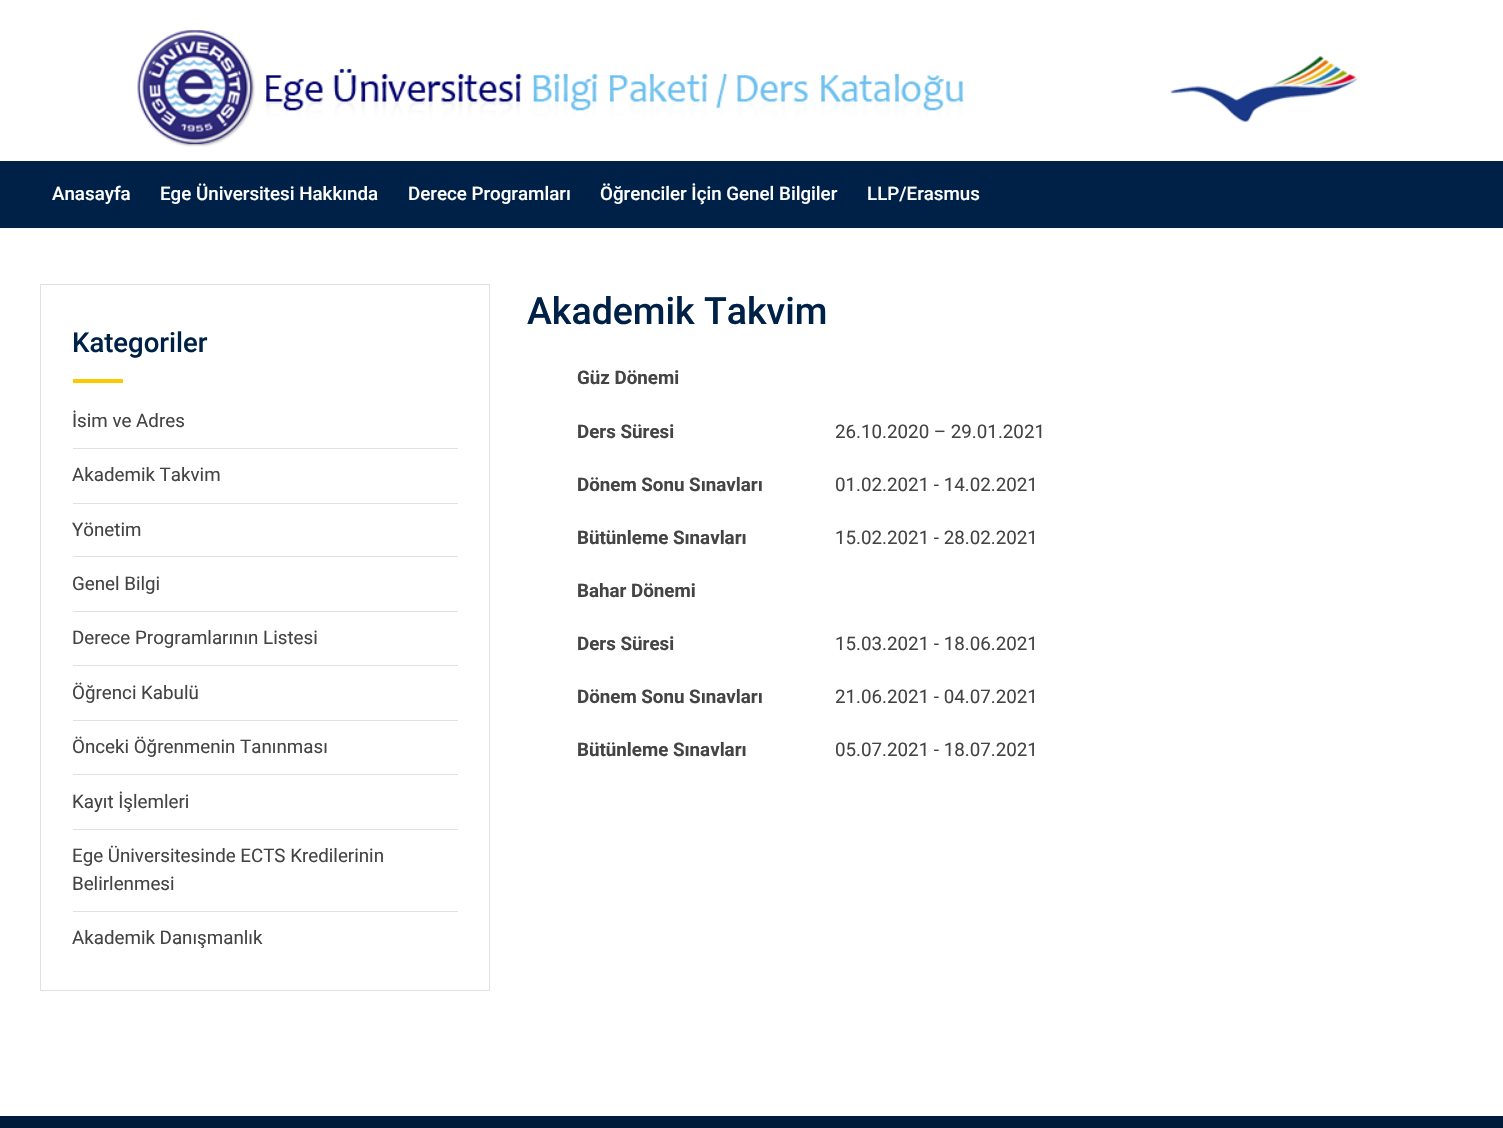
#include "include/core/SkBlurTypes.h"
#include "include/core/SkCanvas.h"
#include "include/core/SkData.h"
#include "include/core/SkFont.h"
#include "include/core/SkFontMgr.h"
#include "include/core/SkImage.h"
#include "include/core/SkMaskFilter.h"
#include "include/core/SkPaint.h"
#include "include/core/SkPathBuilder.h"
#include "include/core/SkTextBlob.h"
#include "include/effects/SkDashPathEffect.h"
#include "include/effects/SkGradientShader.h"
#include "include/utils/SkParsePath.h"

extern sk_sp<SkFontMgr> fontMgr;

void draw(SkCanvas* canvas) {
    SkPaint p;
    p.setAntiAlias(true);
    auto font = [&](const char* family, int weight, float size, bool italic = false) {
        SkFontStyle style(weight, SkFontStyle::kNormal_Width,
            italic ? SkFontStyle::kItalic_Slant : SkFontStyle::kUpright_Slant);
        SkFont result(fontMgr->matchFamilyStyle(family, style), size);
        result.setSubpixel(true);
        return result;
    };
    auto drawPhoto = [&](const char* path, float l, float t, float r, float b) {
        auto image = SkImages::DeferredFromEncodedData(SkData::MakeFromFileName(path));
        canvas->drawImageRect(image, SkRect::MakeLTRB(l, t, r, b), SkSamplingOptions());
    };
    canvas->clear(0xFFFFFFFF);
    drawPhoto("media/1.png", 137, 30, 1359, 147);
    p.setColor(0xFF002147);
    canvas->drawRect(SkRect::MakeLTRB(0, 161, 1503, 228), p);
    auto font1 = font("Roboto", 500, 18.75f);
    p.setColor(0xFFFFFFFF);
    {
        const struct { const char* s; float x, y; } items[] = {
            {"Anasayfa", 52, 200},
            {"Ege Üniversitesi Hakkında", 160, 200},
            {"Derece Programları", 408, 200},
            {"Öğrenciler İçin Genel Bilgiler", 600, 200},
            {"LLP/Erasmus", 867, 200},
        };
        for (auto [s, x, y] : items) {
            canvas->drawString(s, x, y, font1, p);
        }
    }
    p.setStyle(SkPaint::kStroke_Style);
    p.setStrokeWidth(1);
    p.setColor(0xFFE0E0E0);
    canvas->drawRect(SkRect::MakeLTRB(40.5f, 284.5f, 489.5f, 990.5f), p);
    auto font2 = font("Roboto", 500, 27.5f);
    p.setStyle(SkPaint::kFill_Style);
    p.setColor(0xFF002147);
    canvas->drawString("Kategoriler", 72, 352, font2, p);
    p.setColor(0xFFFDC800);
    canvas->drawRect(SkRect::MakeLTRB(73, 379, 123, 383), p);
    p.setColor(0xFFE0E0E0);
    canvas->drawRect(SkRect::MakeLTRB(73, 448, 458, 449), p);
    auto font3 = font("Roboto", 400, 18.75f);
    p.setColor(0xFF444444);
    canvas->drawString("İsim ve Adres", 72, 427, font3, p);
    p.setColor(0xFFE0E0E0);
    canvas->drawRect(SkRect::MakeLTRB(73, 503, 458, 504), p);
    p.setColor(0xFF444444);
    canvas->drawString("Akademik Takvim", 72, 481, font3, p);
    p.setColor(0xFFE0E0E0);
    canvas->drawRect(SkRect::MakeLTRB(73, 556, 458, 557), p);
    p.setColor(0xFF444444);
    canvas->drawString("Yönetim", 72, 536, font3, p);
    p.setColor(0xFFE0E0E0);
    canvas->drawRect(SkRect::MakeLTRB(73, 611, 458, 612), p);
    p.setColor(0xFF444444);
    canvas->drawString("Genel Bilgi", 72, 590, font3, p);
    p.setColor(0xFFE0E0E0);
    canvas->drawRect(SkRect::MakeLTRB(73, 665, 458, 666), p);
    p.setColor(0xFF444444);
    canvas->drawString("Derece Programlarının Listesi", 72, 644, font3, p);
    p.setColor(0xFFE0E0E0);
    canvas->drawRect(SkRect::MakeLTRB(73, 720, 458, 721), p);
    p.setColor(0xFF444444);
    canvas->drawString("Öğrenci Kabulü", 72, 699, font3, p);
    p.setColor(0xFFE0E0E0);
    canvas->drawRect(SkRect::MakeLTRB(73, 774, 458, 775), p);
    p.setColor(0xFF444444);
    canvas->drawString("Önceki Öğrenmenin Tanınması", 72, 753, font3, p);
    p.setColor(0xFFE0E0E0);
    canvas->drawRect(SkRect::MakeLTRB(73, 829, 458, 830), p);
    p.setColor(0xFF444444);
    canvas->drawString("Kayıt İşlemleri", 72, 808, font3, p);
    p.setColor(0xFFE0E0E0);
    canvas->drawRect(SkRect::MakeLTRB(73, 911, 458, 912), p);
    p.setColor(0xFF444444);
    {
        const struct { const char* s; float x, y; } items[] = {
            {"Ege Üniversitesinde ECTS Kredilerinin", 72, 862},
            {"Belirlenmesi", 72, 890},
            {"Akademik Danışmanlık", 72, 944},
        };
        for (auto [s, x, y] : items) {
            canvas->drawString(s, x, y, font3, p);
        }
    }
    auto font4 = font("Roboto", 500, 37.5f);
    p.setColor(0xFF002147);
    canvas->drawString("Akademik Takvim", 527, 324, font4, p);
    auto font5 = font("Roboto", 700, 18.75f);
    p.setColor(0xFF444444);
    canvas->drawString("Güz Dönemi", 577, 384, font5, p);
    canvas->drawString("Ders Süresi", 577, 438, font5, p);
    canvas->drawString("26.10.2020 – 29.01.2021", 835, 438, font3, p);
    canvas->drawString("Dönem Sonu Sınavları", 577, 491, font5, p);
    canvas->drawString("01.02.2021 - 14.02.2021", 835, 491, font3, p);
    canvas->drawString("Bütünleme Sınavları", 577, 544, font5, p);
    canvas->drawString("15.02.2021 - 28.02.2021", 835, 544, font3, p);
    canvas->drawString("Bahar Dönemi", 577, 597, font5, p);
    canvas->drawString("Ders Süresi", 577, 650, font5, p);
    canvas->drawString("15.03.2021 - 18.06.2021", 835, 650, font3, p);
    canvas->drawString("Dönem Sonu Sınavları", 577, 703, font5, p);
    canvas->drawString("21.06.2021 - 04.07.2021", 835, 703, font3, p);
    canvas->drawString("Bütünleme Sınavları", 577, 756, font5, p);
    canvas->drawString("05.07.2021 - 18.07.2021", 835, 756, font3, p);
    p.setColor(0xFF001A39);
    canvas->drawRect(SkRect::MakeLTRB(0, 1116, 1503, 1128), p);
}
